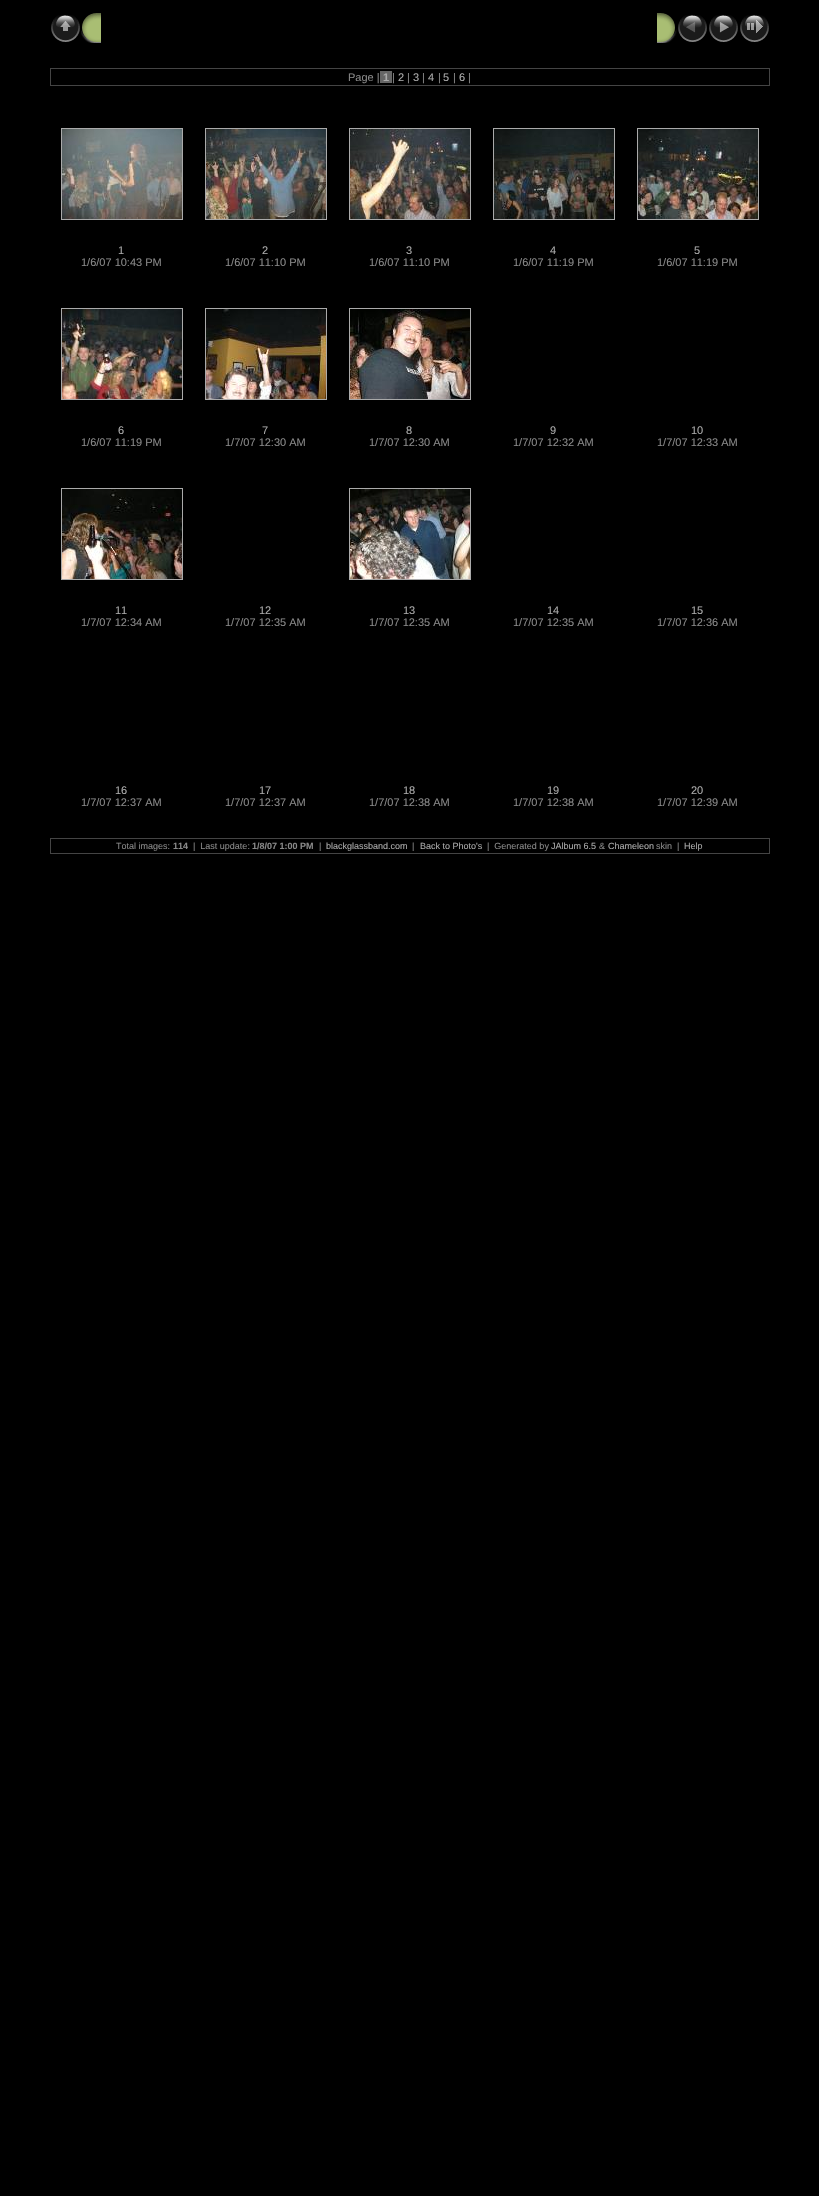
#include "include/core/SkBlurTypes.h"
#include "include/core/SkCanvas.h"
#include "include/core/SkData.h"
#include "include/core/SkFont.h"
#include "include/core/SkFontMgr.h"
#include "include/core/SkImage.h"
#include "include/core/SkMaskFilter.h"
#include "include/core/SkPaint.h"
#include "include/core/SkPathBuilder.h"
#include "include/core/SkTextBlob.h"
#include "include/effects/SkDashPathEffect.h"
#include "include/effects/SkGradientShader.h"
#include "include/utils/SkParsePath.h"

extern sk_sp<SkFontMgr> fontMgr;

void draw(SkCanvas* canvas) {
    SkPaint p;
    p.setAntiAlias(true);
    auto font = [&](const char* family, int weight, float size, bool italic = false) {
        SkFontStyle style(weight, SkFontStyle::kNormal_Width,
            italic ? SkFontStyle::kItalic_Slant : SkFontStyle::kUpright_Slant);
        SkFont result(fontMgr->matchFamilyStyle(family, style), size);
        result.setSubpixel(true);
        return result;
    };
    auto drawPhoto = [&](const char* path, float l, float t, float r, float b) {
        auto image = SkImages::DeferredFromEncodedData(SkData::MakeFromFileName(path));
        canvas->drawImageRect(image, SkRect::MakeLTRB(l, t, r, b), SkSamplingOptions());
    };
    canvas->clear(0xFF000000);
    drawPhoto("media/1.png", 51, 15, 80, 42);
    drawPhoto("media/2.png", 81, 13, 101, 43);
    drawPhoto("media/3.png", 657, 13, 677, 43);
    drawPhoto("media/4.png", 678, 15, 707, 42);
    drawPhoto("media/5.png", 709, 15, 738, 42);
    drawPhoto("media/6.png", 740, 15, 769, 42);
    {
        const struct { float l, t, r, b; SkColor color; } items[] = {
            {50, 68, 770, 69, 0xFF444444},
            {769, 68, 770, 86, 0xFF444444},
            {50, 85, 770, 86, 0xFF444444},
            {50, 68, 51, 86, 0xFF444444},
        };
        for (auto [l, t, r, b, color] : items) {
            p.setColor(color);
            canvas->drawRect(SkRect::MakeLTRB(l, t, r, b), p);
        }
    }
    auto font1 = font("Liberation Sans", 400, 11);
    p.setColor(0xFF888888);
    canvas->drawString("Page |", 348, 81, font1, p);
    p.setColor(0xFF666666);
    canvas->drawRect(SkRect::MakeLTRB(380, 71, 392, 83), p);
    auto font2 = font("Liberation Sans", 700, 11);
    p.setColor(0xFFAAAAAA);
    canvas->drawString("1", 383, 81, font2, p);
    p.setColor(0xFF888888);
    canvas->drawString("|", 392, 81, font1, p);
    p.setColor(0xFFAAAAAA);
    canvas->drawString("2", 398, 81, font1, p);
    p.setColor(0xFF888888);
    canvas->drawString("|", 407, 81, font1, p);
    p.setColor(0xFFAAAAAA);
    canvas->drawString("3", 413, 81, font1, p);
    p.setColor(0xFF888888);
    canvas->drawString("|", 422, 81, font1, p);
    p.setColor(0xFFAAAAAA);
    canvas->drawString("4", 428, 81, font1, p);
    p.setColor(0xFF888888);
    canvas->drawString("|", 438, 81, font1, p);
    p.setColor(0xFFAAAAAA);
    canvas->drawString("5", 443, 81, font1, p);
    p.setColor(0xFF888888);
    canvas->drawString("|", 453, 81, font1, p);
    p.setColor(0xFFAAAAAA);
    canvas->drawString("6", 459, 81, font1, p);
    p.setColor(0xFF888888);
    canvas->drawString("|", 468, 81, font1, p);
    p.setStyle(SkPaint::kStroke_Style);
    p.setStrokeWidth(1);
    p.setColor(0xFFAAAAAA);
    canvas->drawRect(SkRect::MakeLTRB(61.5f, 128.5f, 182.5f, 219.5f), p);
    drawPhoto("media/7.png", 62, 129, 182, 219);
    p.setStyle(SkPaint::kFill_Style);
    canvas->drawString("1", 118, 254, font1, p);
    p.setColor(0xFF888888);
    canvas->drawString("1/6/07 10:43 PM", 81, 266, font1, p);
    p.setStyle(SkPaint::kStroke_Style);
    p.setColor(0xFFAAAAAA);
    canvas->drawRect(SkRect::MakeLTRB(205.5f, 128.5f, 326.5f, 219.5f), p);
    drawPhoto("media/8.png", 206, 129, 326, 219);
    p.setStyle(SkPaint::kFill_Style);
    canvas->drawString("2", 262, 254, font1, p);
    p.setColor(0xFF888888);
    canvas->drawString("1/6/07 11:10 PM", 225, 266, font1, p);
    p.setStyle(SkPaint::kStroke_Style);
    p.setColor(0xFFAAAAAA);
    canvas->drawRect(SkRect::MakeLTRB(349.5f, 128.5f, 470.5f, 219.5f), p);
    drawPhoto("media/9.png", 350, 129, 470, 219);
    p.setStyle(SkPaint::kFill_Style);
    canvas->drawString("3", 406, 254, font1, p);
    p.setColor(0xFF888888);
    canvas->drawString("1/6/07 11:10 PM", 369, 266, font1, p);
    p.setStyle(SkPaint::kStroke_Style);
    p.setColor(0xFFAAAAAA);
    canvas->drawRect(SkRect::MakeLTRB(493.5f, 128.5f, 614.5f, 219.5f), p);
    drawPhoto("media/10.png", 494, 129, 614, 219);
    p.setStyle(SkPaint::kFill_Style);
    canvas->drawString("4", 550, 254, font1, p);
    p.setColor(0xFF888888);
    canvas->drawString("1/6/07 11:19 PM", 513, 266, font1, p);
    p.setStyle(SkPaint::kStroke_Style);
    p.setColor(0xFFAAAAAA);
    canvas->drawRect(SkRect::MakeLTRB(637.5f, 128.5f, 758.5f, 219.5f), p);
    drawPhoto("media/11.png", 638, 129, 758, 219);
    p.setStyle(SkPaint::kFill_Style);
    canvas->drawString("5", 694, 254, font1, p);
    p.setColor(0xFF888888);
    canvas->drawString("1/6/07 11:19 PM", 657, 266, font1, p);
    p.setStyle(SkPaint::kStroke_Style);
    p.setColor(0xFFAAAAAA);
    canvas->drawRect(SkRect::MakeLTRB(61.5f, 308.5f, 182.5f, 399.5f), p);
    drawPhoto("media/12.png", 62, 309, 182, 399);
    p.setStyle(SkPaint::kFill_Style);
    canvas->drawString("6", 118, 434, font1, p);
    p.setColor(0xFF888888);
    canvas->drawString("1/6/07 11:19 PM", 81, 446, font1, p);
    p.setStyle(SkPaint::kStroke_Style);
    p.setColor(0xFFAAAAAA);
    canvas->drawRect(SkRect::MakeLTRB(205.5f, 308.5f, 326.5f, 399.5f), p);
    drawPhoto("media/13.png", 206, 309, 326, 399);
    p.setStyle(SkPaint::kFill_Style);
    canvas->drawString("7", 262, 434, font1, p);
    p.setColor(0xFF888888);
    canvas->drawString("1/7/07 12:30 AM", 225, 446, font1, p);
    p.setStyle(SkPaint::kStroke_Style);
    p.setColor(0xFFAAAAAA);
    canvas->drawRect(SkRect::MakeLTRB(349.5f, 308.5f, 470.5f, 399.5f), p);
    drawPhoto("media/14.png", 350, 309, 470, 399);
    p.setStyle(SkPaint::kFill_Style);
    canvas->drawString("8", 406, 434, font1, p);
    p.setColor(0xFF888888);
    canvas->drawString("1/7/07 12:30 AM", 369, 446, font1, p);
    p.setColor(0xFFAAAAAA);
    canvas->drawString("9", 550, 434, font1, p);
    p.setColor(0xFF888888);
    canvas->drawString("1/7/07 12:32 AM", 513, 446, font1, p);
    p.setColor(0xFFAAAAAA);
    canvas->drawString("10", 691, 434, font1, p);
    p.setColor(0xFF888888);
    canvas->drawString("1/7/07 12:33 AM", 657, 446, font1, p);
    p.setStyle(SkPaint::kStroke_Style);
    p.setColor(0xFFAAAAAA);
    canvas->drawRect(SkRect::MakeLTRB(61.5f, 488.5f, 182.5f, 579.5f), p);
    drawPhoto("media/15.png", 62, 489, 182, 579);
    p.setStyle(SkPaint::kFill_Style);
    canvas->drawString("11", 115, 614, font1, p);
    p.setColor(0xFF888888);
    canvas->drawString("1/7/07 12:34 AM", 81, 626, font1, p);
    p.setColor(0xFFAAAAAA);
    canvas->drawString("12", 259, 614, font1, p);
    p.setColor(0xFF888888);
    canvas->drawString("1/7/07 12:35 AM", 225, 626, font1, p);
    p.setStyle(SkPaint::kStroke_Style);
    p.setColor(0xFFAAAAAA);
    canvas->drawRect(SkRect::MakeLTRB(349.5f, 488.5f, 470.5f, 579.5f), p);
    drawPhoto("media/16.png", 350, 489, 470, 579);
    p.setStyle(SkPaint::kFill_Style);
    canvas->drawString("13", 403, 614, font1, p);
    p.setColor(0xFF888888);
    canvas->drawString("1/7/07 12:35 AM", 369, 626, font1, p);
    p.setColor(0xFFAAAAAA);
    canvas->drawString("14", 547, 614, font1, p);
    p.setColor(0xFF888888);
    canvas->drawString("1/7/07 12:35 AM", 513, 626, font1, p);
    p.setColor(0xFFAAAAAA);
    canvas->drawString("15", 691, 614, font1, p);
    p.setColor(0xFF888888);
    canvas->drawString("1/7/07 12:36 AM", 657, 626, font1, p);
    p.setColor(0xFFAAAAAA);
    canvas->drawString("16", 115, 794, font1, p);
    p.setColor(0xFF888888);
    canvas->drawString("1/7/07 12:37 AM", 81, 806, font1, p);
    p.setColor(0xFFAAAAAA);
    canvas->drawString("17", 259, 794, font1, p);
    p.setColor(0xFF888888);
    canvas->drawString("1/7/07 12:37 AM", 225, 806, font1, p);
    p.setColor(0xFFAAAAAA);
    canvas->drawString("18", 403, 794, font1, p);
    p.setColor(0xFF888888);
    canvas->drawString("1/7/07 12:38 AM", 369, 806, font1, p);
    p.setColor(0xFFAAAAAA);
    canvas->drawString("19", 547, 794, font1, p);
    p.setColor(0xFF888888);
    canvas->drawString("1/7/07 12:38 AM", 513, 806, font1, p);
    p.setColor(0xFFAAAAAA);
    canvas->drawString("20", 691, 794, font1, p);
    p.setColor(0xFF888888);
    canvas->drawString("1/7/07 12:39 AM", 657, 806, font1, p);
    {
        const struct { float l, t, r, b; SkColor color; } items[] = {
            {50, 838, 770, 839, 0xFF444444},
            {769, 838, 770, 854, 0xFF444444},
            {50, 853, 770, 854, 0xFF444444},
            {50, 838, 51, 854, 0xFF444444},
        };
        for (auto [l, t, r, b, color] : items) {
            p.setColor(color);
            canvas->drawRect(SkRect::MakeLTRB(l, t, r, b), p);
        }
    }
    auto font3 = font("Liberation Sans", 400, 9);
    p.setColor(0xFF888888);
    canvas->drawString("Total images:", 116, 849, font3, p);
    auto font4 = font("Liberation Sans", 700, 9);
    canvas->drawString("114", 173, 849, font4, p);
    canvas->drawString("|  Last update:", 193, 849, font3, p);
    canvas->drawString("1/8/07 1:00 PM", 252, 849, font4, p);
    canvas->drawString("|", 319, 849, font3, p);
    p.setColor(0xFFAAAAAA);
    canvas->drawString("blackglassband.com", 326, 849, font3, p);
    p.setColor(0xFF888888);
    canvas->drawString("|", 412, 849, font3, p);
    p.setColor(0xFFAAAAAA);
    canvas->drawString("Back to Photo's", 420, 849, font3, p);
    p.setColor(0xFF888888);
    canvas->drawString("|  Generated by", 487, 849, font3, p);
    p.setColor(0xFFAAAAAA);
    canvas->drawString("JAlbum 6.5", 551, 849, font3, p);
    p.setColor(0xFF888888);
    canvas->drawString("&", 599, 849, font3, p);
    p.setColor(0xFFAAAAAA);
    canvas->drawString("Chameleon", 608, 849, font3, p);
    p.setColor(0xFF888888);
    canvas->drawString("skin  |", 656, 849, font3, p);
    p.setColor(0xFFAAAAAA);
    canvas->drawString("Help", 684, 849, font3, p);
}
